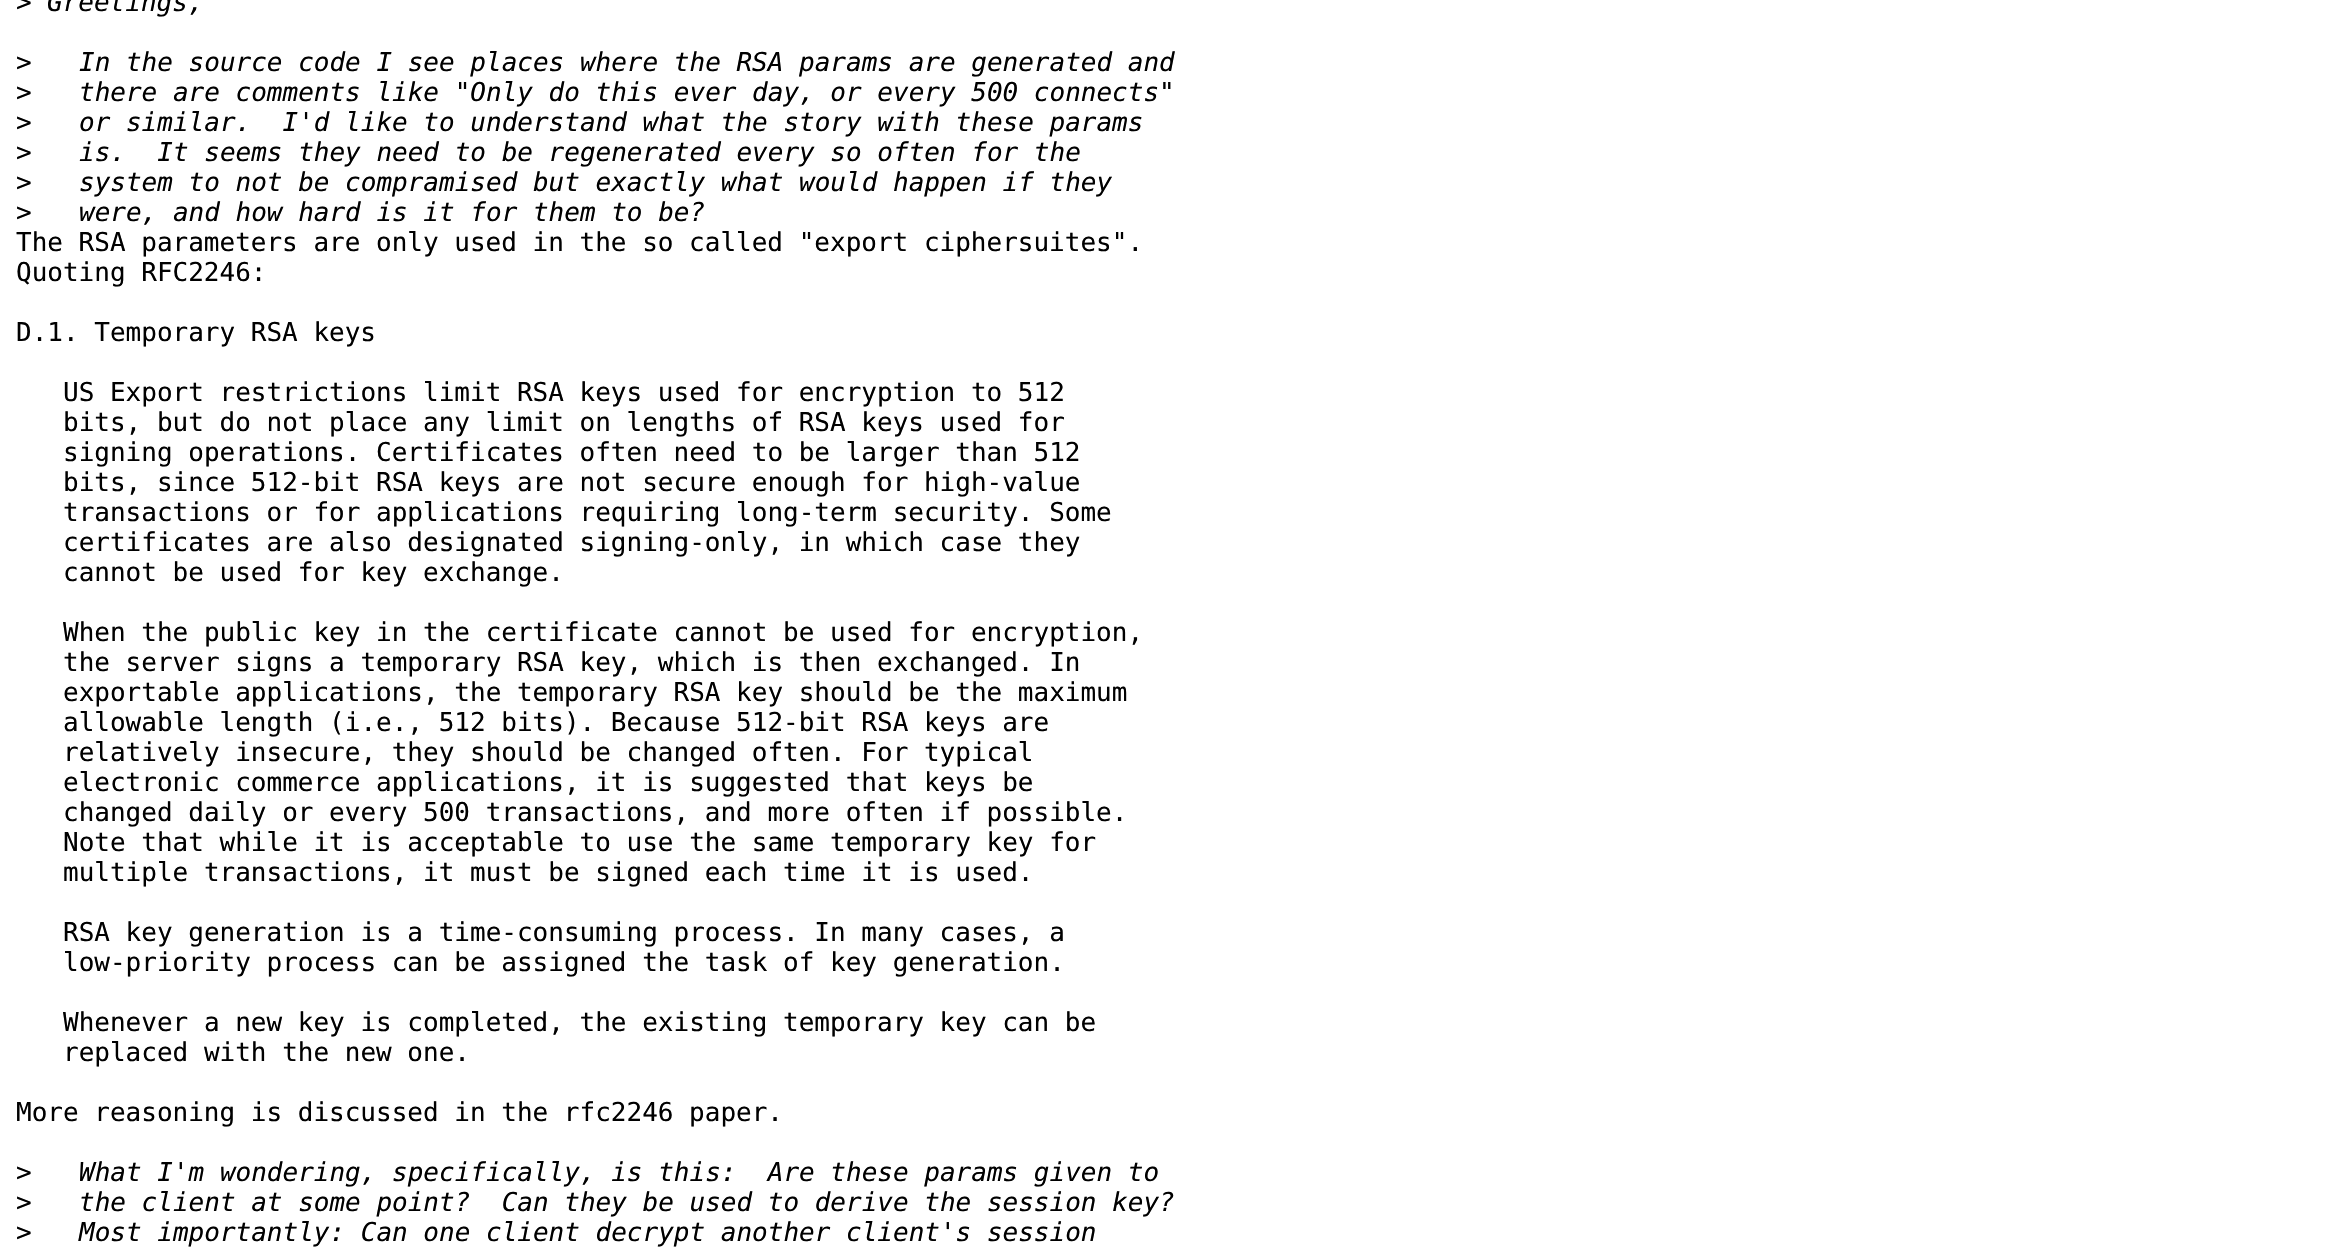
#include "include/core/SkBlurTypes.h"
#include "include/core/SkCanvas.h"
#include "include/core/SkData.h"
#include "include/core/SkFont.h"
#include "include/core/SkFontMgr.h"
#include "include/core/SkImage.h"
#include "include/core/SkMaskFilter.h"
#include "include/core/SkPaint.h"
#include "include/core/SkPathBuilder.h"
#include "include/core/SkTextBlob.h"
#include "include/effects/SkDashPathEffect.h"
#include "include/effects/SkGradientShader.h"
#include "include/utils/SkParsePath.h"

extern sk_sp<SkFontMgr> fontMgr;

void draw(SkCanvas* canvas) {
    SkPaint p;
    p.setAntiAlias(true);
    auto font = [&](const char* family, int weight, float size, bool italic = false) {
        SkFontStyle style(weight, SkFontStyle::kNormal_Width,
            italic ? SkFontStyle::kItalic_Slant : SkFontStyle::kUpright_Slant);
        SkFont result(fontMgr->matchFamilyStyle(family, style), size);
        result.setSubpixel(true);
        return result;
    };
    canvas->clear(0xFFFFFFFF);
    auto font1 = font("DejaVu Sans Mono", 400, 26);
    p.setColor(0xFF000000);
    canvas->drawString(">", 16, 11, font1, p);
    auto font2 = font("DejaVu Sans Mono", 400, 26, true);
    canvas->drawString("Greetings,", 47, 11, font2, p);
    canvas->drawString(">", 16, 71, font1, p);
    canvas->drawString("In the source code I see places where the RSA params are generated and", 79, 71, font2, p);
    canvas->drawString(">", 16, 101, font1, p);
    canvas->drawString("there are comments like \"Only do this ever day, or every 500 connects\"", 79, 101, font2, p);
    canvas->drawString(">", 16, 131, font1, p);
    canvas->drawString("or similar.  I'd like to understand what the story with these params", 79, 131, font2, p);
    canvas->drawString(">", 16, 161, font1, p);
    canvas->drawString("is.  It seems they need to be regenerated every so often for the", 79, 161, font2, p);
    canvas->drawString(">", 16, 191, font1, p);
    canvas->drawString("system to not be compramised but exactly what would happen if they", 79, 191, font2, p);
    canvas->drawString(">", 16, 221, font1, p);
    canvas->drawString("were, and how hard is it for them to be?", 79, 221, font2, p);
    {
        const struct { const char* s; float x, y; } items[] = {
            {"The RSA parameters are only used in the so called \"export ciphersuites\".", 16, 251},
            {"Quoting RFC2246:", 16, 281},
            {"D.1. Temporary RSA keys", 16, 341},
            {"US Export restrictions limit RSA keys used for encryption to 512", 63, 401},
            {"bits, but do not place any limit on lengths of RSA keys used for", 63, 431},
            {"signing operations. Certificates often need to be larger than 512", 63, 461},
            {"bits, since 512-bit RSA keys are not secure enough for high-value", 63, 491},
            {"transactions or for applications requiring long-term security. Some", 63, 521},
            {"certificates are also designated signing-only, in which case they", 63, 551},
            {"cannot be used for key exchange.", 63, 581},
            {"When the public key in the certificate cannot be used for encryption,", 63, 641},
            {"the server signs a temporary RSA key, which is then exchanged. In", 63, 671},
            {"exportable applications, the temporary RSA key should be the maximum", 63, 701},
            {"allowable length (i.e., 512 bits). Because 512-bit RSA keys are", 63, 731},
            {"relatively insecure, they should be changed often. For typical", 63, 761},
            {"electronic commerce applications, it is suggested that keys be", 63, 791},
            {"changed daily or every 500 transactions, and more often if possible.", 63, 821},
            {"Note that while it is acceptable to use the same temporary key for", 63, 851},
            {"multiple transactions, it must be signed each time it is used.", 63, 881},
            {"RSA key generation is a time-consuming process. In many cases, a", 63, 941},
            {"low-priority process can be assigned the task of key generation.", 63, 971},
            {"Whenever a new key is completed, the existing temporary key can be", 63, 1031},
            {"replaced with the new one.", 63, 1061},
            {"More reasoning is discussed in the rfc2246 paper.", 16, 1121},
            {">", 16, 1181},
        };
        for (auto [s, x, y] : items) {
            canvas->drawString(s, x, y, font1, p);
        }
    }
    canvas->drawString("What I'm wondering, specifically, is this:  Are these params given to", 79, 1181, font2, p);
    canvas->drawString(">", 16, 1211, font1, p);
    canvas->drawString("the client at some point?  Can they be used to derive the session key?", 79, 1211, font2, p);
    canvas->drawString(">", 16, 1241, font1, p);
    canvas->drawString("Most importantly: Can one client decrypt another client's session", 79, 1241, font2, p);
}
